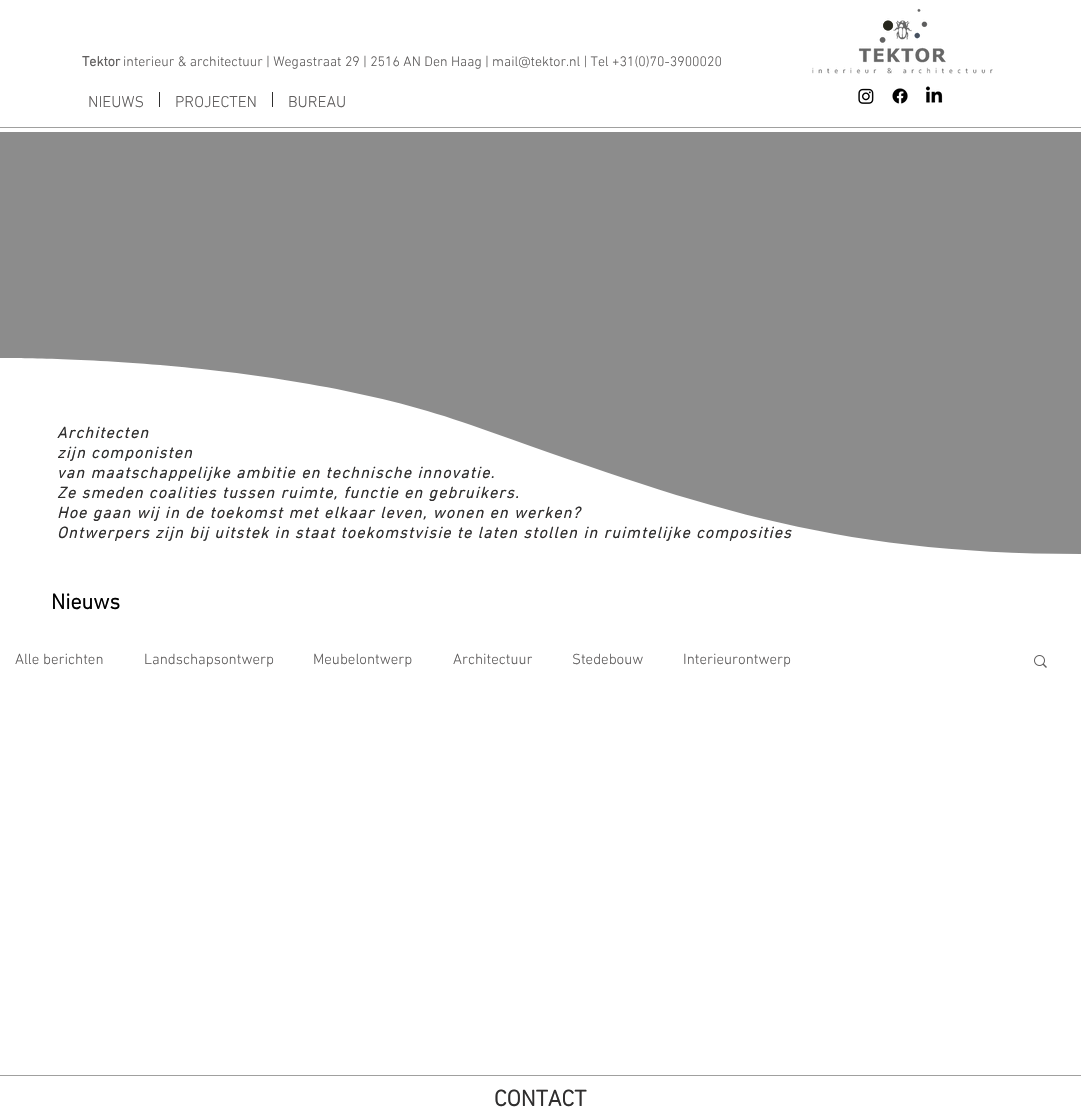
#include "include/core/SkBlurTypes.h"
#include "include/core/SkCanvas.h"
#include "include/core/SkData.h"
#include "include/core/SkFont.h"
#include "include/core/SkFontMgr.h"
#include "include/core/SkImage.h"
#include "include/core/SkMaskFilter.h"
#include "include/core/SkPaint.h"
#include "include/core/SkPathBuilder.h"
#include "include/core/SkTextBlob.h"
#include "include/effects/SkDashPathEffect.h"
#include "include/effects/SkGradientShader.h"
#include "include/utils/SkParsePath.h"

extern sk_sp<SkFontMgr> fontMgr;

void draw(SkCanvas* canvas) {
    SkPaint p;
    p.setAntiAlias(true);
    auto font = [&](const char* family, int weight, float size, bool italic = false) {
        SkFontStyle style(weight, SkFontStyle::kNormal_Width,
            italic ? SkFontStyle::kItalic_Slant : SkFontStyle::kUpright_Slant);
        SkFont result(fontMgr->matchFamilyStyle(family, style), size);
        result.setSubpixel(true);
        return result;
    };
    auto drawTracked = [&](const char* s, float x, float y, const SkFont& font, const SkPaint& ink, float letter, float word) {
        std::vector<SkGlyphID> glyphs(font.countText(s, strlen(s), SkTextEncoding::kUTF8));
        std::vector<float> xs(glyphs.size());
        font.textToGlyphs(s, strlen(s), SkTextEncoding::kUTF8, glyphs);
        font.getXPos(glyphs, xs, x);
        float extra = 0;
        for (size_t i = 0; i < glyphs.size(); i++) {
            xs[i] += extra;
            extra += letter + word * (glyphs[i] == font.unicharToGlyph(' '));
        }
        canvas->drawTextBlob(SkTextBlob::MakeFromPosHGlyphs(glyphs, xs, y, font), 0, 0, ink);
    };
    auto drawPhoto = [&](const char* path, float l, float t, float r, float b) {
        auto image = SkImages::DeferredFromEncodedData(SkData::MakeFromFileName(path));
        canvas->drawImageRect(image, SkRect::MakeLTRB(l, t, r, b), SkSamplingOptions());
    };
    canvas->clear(0xFFFFFFFF);
    auto font1 = font("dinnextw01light", 700, 14);
    p.setColor(0xFF605E5E);
    canvas->drawString("Tektor", 82, 66, font1, p);
    auto font2 = font("dinnextw01light", 300, 14);
    canvas->drawString("interieur & architectuur | Wegastraat 29 | 2516 AN Den Haag | mail@tektor.nl | Tel +31(0)70-3900020", 123, 66, font2, p);
    drawPhoto("media/1.png", 812, 8, 993, 74);
    auto font3 = font("dinnextw01light", 300, 16);
    canvas->drawString("NIEUWS", 88, 107, font3, p);
    p.setColor(0xFF2F2E2E);
    canvas->drawRect(SkRect::MakeLTRB(159, 92, 160, 107), p);
    p.setColor(0xFF605E5E);
    canvas->drawString("PROJECTEN", 175, 107, font3, p);
    p.setColor(0xFF2F2E2E);
    canvas->drawRect(SkRect::MakeLTRB(272, 92, 273, 107), p);
    p.setColor(0xFF605E5E);
    canvas->drawString("BUREAU", 288, 107, font3, p);
    drawPhoto("media/2.png", 858, 88, 874, 104);
    drawPhoto("media/3.png", 892, 88, 908, 104);
    drawPhoto("media/4.png", 925, 86, 943, 103);
    p.setColor(0xFFA0A09F);
    canvas->drawRect(SkRect::MakeLTRB(0, 127, 1081, 128), p);
    p.setColor(0xFF8C8C8C);
    canvas->drawRect(SkRect::MakeLTRB(0, 132, 1081, 554), p);
    p.setColor(0xFFFFFFFF);
    canvas->drawPath(SkPathBuilder().moveTo(1081, 558).lineTo(1081, 554).cubicTo(825, 554, 692, 503, 471, 425).cubicTo(276, 355, 0, 358, 0, 358).lineTo(0, 558).close().detach(), p);
    auto font4 = font("dinnextw01light", 700, 16, true);
    p.setColor(0xFF2F2E2E);
    {
        const struct { const char* s; float x, y; } items[] = {
            {"Architecten", 57, 438},
            {"zijn componisten", 57, 458},
            {"van maatschappelijke ambitie en technische innovatie.", 57, 478},
            {"Ze smeden coalities tussen ruimte, functie en gebruikers.", 57, 498},
            {"Hoe gaan wij in de toekomst met elkaar leven, wonen en werken?", 57, 518},
            {"Ontwerpers zijn bij uitstek in staat toekomstvisie te laten stollen in ruimtelijke composities", 57, 538},
        };
        for (auto [s, x, y] : items) {
            drawTracked(s, x, y, font4, p, 1.28f, 0);
        }
    }
    auto font5 = font("dinnextw01light", 700, 22);
    p.setColor(0xFF000000);
    canvas->drawString("Nieuws", 51, 609, font5, p);
    auto font6 = font("dinnextw01light", 300, 15);
    p.setColor(0xFF605E5E);
    {
        const struct { const char* s; float x, y; } items[] = {
            {"Alle berichten", 15, 664},
            {"Landschapsontwerp", 144, 664},
            {"Meubelontwerp", 313, 664},
            {"Architectuur", 453, 664},
            {"Stedebouw", 572, 664},
            {"Interieurontwerp", 683, 664},
        };
        for (auto [s, x, y] : items) {
            canvas->drawString(s, x, y, font6, p);
        }
    }
    drawPhoto("media/5.png", 1034, 655, 1047, 668);
    p.setColor(0xFFA0A09F);
    canvas->drawRect(SkRect::MakeLTRB(0, 1075, 1081, 1076), p);
    auto font7 = font("dinnextw01light", 700, 23);
    p.setColor(0xFF2F2E2E);
    canvas->drawString("CONTACT", 494, 1106, font7, p);
}
